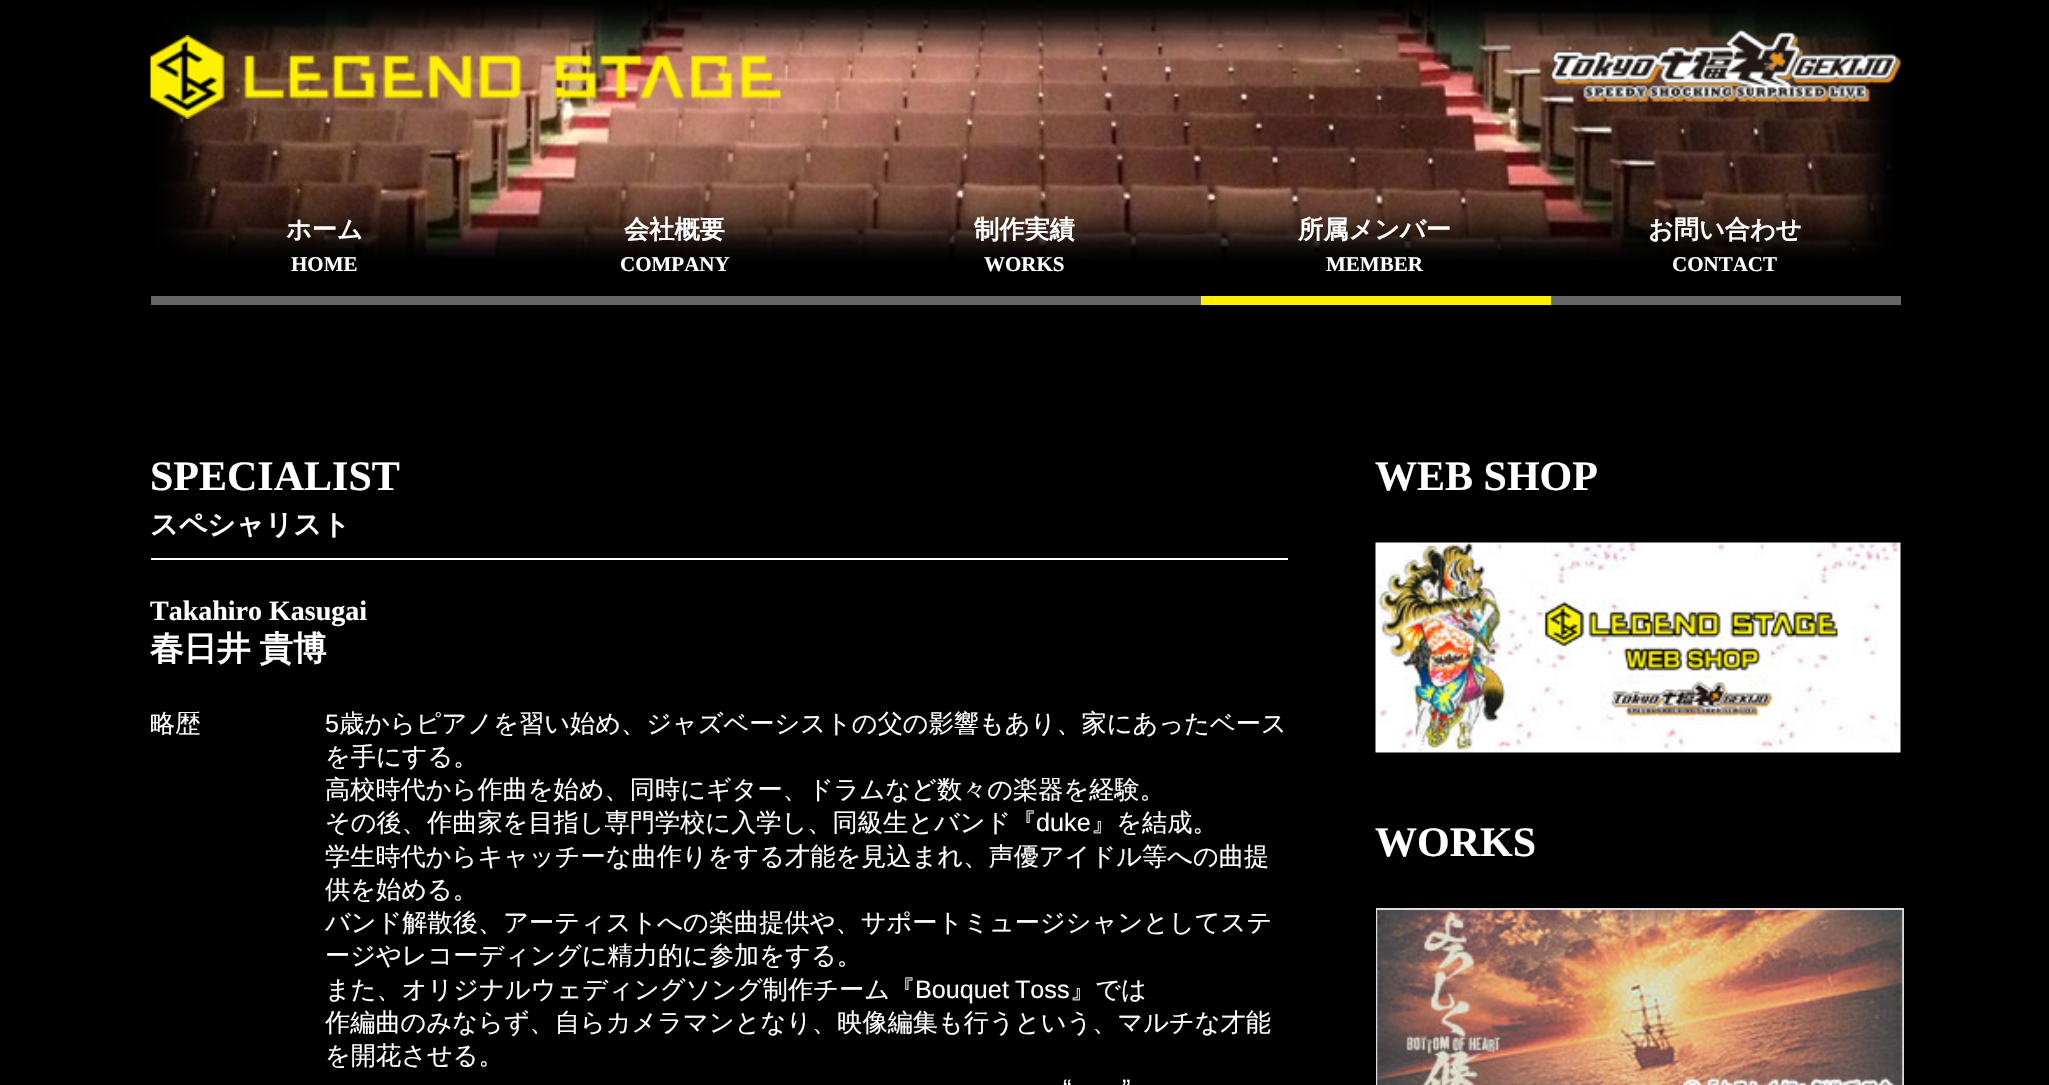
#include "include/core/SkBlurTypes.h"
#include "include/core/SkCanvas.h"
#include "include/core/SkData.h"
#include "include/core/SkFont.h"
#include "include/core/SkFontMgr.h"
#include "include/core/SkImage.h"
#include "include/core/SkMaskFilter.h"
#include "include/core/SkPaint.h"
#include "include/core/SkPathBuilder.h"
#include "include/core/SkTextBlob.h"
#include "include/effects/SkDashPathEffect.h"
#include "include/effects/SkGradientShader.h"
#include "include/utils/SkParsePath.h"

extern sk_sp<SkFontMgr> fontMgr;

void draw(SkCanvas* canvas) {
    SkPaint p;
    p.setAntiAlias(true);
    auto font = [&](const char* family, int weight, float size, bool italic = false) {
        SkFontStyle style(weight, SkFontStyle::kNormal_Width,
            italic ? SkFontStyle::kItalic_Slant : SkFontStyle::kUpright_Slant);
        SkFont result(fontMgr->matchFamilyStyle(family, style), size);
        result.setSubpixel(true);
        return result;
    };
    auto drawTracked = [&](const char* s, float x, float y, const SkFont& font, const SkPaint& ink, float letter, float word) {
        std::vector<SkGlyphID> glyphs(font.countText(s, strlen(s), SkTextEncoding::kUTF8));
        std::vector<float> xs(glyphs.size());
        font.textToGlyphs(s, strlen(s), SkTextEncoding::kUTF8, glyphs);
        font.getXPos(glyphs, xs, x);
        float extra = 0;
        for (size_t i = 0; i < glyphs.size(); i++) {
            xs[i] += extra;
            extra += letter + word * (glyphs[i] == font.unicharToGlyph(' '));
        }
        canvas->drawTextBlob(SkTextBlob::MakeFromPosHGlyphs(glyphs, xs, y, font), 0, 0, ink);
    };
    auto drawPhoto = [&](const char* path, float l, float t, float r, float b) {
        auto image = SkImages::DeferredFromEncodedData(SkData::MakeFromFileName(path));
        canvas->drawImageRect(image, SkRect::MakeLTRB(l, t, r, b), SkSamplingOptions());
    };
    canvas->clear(0xFF000000);
    drawPhoto("media/1.png", 158, 0, 1893, 260);
    drawPhoto("media/2.png", 150, 35, 781, 119);
    drawPhoto("media/3.png", 1550, 29, 1901, 102);
    p.setColor(0xFF666666);
    canvas->drawRect(SkRect::MakeLTRB(151, 296, 1201, 305), p);
    auto font1 = font("WenQuanYi Zen Hei", 700, 25.2f);
    p.setColor(0xFFFFFFFF);
    canvas->drawString("ホーム", 286, 238, font1, p);
    auto font2 = font("Liberation Serif", 700, 21);
    canvas->drawString("HOME", 291, 271, font2, p);
    canvas->drawString("会社概要", 624, 238, font1, p);
    canvas->drawString("COMPANY", 620, 271, font2, p);
    canvas->drawString("制作実績", 974, 238, font1, p);
    canvas->drawString("WORKS", 984, 271, font2, p);
    p.setColor(0xFFFFEF00);
    canvas->drawRect(SkRect::MakeLTRB(1201, 296, 1551, 305), p);
    p.setColor(0xFFFFFFFF);
    canvas->drawString("所属メンバー", 1298, 238, font1, p);
    canvas->drawString("MEMBER", 1326, 271, font2, p);
    p.setColor(0xFF666666);
    canvas->drawRect(SkRect::MakeLTRB(1551, 296, 1901, 305), p);
    p.setColor(0xFFFFFFFF);
    canvas->drawString("お問い合わせ", 1648, 238, font1, p);
    canvas->drawString("CONTACT", 1672, 271, font2, p);
    auto font3 = font("Liberation Serif", 700, 42);
    canvas->drawString("SPECIALIST", 150, 490, font3, p);
    canvas->drawRect(SkRect::MakeLTRB(151, 558, 1288, 560), p);
    auto font4 = font("WenQuanYi Zen Hei", 700, 28);
    canvas->drawString("スペシャリスト", 150, 534, font4, p);
    auto font5 = font("Liberation Serif", 700, 28);
    canvas->drawString("Takahiro Kasugai", 150, 620, font5, p);
    auto font6 = font("WenQuanYi Zen Hei", 700, 33.5f);
    drawTracked("春日井 貴博", 150, 660, font6, p, 0, -1);
    auto font7 = font("WenQuanYi Zen Hei", 500, 25.2f);
    canvas->drawString("略歴", 150, 732, font7, p);
    auto font8 = font("Liberation Sans", 400, 25.2f);
    canvas->drawString("5", 325, 732, font8, p);
    {
        const struct { const char* s; float x, y; } items[] = {
            {"歳からピアノを習い始め、ジャズベーシストの父の影響もあり、家にあったベース", 339, 732},
            {"を手にする。", 325, 765},
            {"高校時代から作曲を始め、同時にギター、ドラムなど数々の楽器を経験。", 325, 798},
            {"その後、作曲家を目指し専門学校に入学し、同級生とバンド『", 325, 831},
        };
        for (auto [s, x, y] : items) {
            canvas->drawString(s, x, y, font7, p);
        }
    }
    canvas->drawString("duke", 1036, 831, font8, p);
    {
        const struct { const char* s; float x, y; } items[] = {
            {"』を結成。", 1091, 831},
            {"学生時代からキャッチーな曲作りをする才能を見込まれ、声優アイドル等への曲提", 325, 865},
            {"供を始める。", 325, 898},
            {"バンド解散後、アーティストへの楽曲提供や、サポートミュージシャンとしてステ", 325, 931},
            {"ージやレコーディングに精力的に参加をする。", 325, 964},
            {"また、オリジナルウェディングソング制作チーム『", 325, 998},
        };
        for (auto [s, x, y] : items) {
            canvas->drawString(s, x, y, font7, p);
        }
    }
    drawTracked("Bouquet Toss", 915, 998, font8, p, 0, -1);
    {
        const struct { const char* s; float x, y; } items[] = {
            {"』では", 1070, 998},
            {"作編曲のみならず、自らカメラマンとなり、映像編集も行うという、マルチな才能", 325, 1031},
            {"を開花させる。", 325, 1064},
        };
        for (auto [s, x, y] : items) {
            canvas->drawString(s, x, y, font7, p);
        }
    }
    canvas->drawString("“", 1063, 1097, font8, p);
    canvas->drawString("”", 1122, 1097, font8, p);
    canvas->drawString("WEB SHOP", 1375, 490, font3, p);
    drawPhoto("media/4.png", 1375, 542, 1901, 753);
    canvas->drawString("WORKS", 1375, 856, font3, p);
    p.setStyle(SkPaint::kStroke_Style);
    p.setStrokeWidth(2);
    p.setColor(0xFFDDDDDD);
    canvas->drawRect(SkRect::MakeLTRB(1377, 909, 1903, 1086), p);
    drawPhoto("media/5.png", 1377, 910, 1903, 1085);
}
